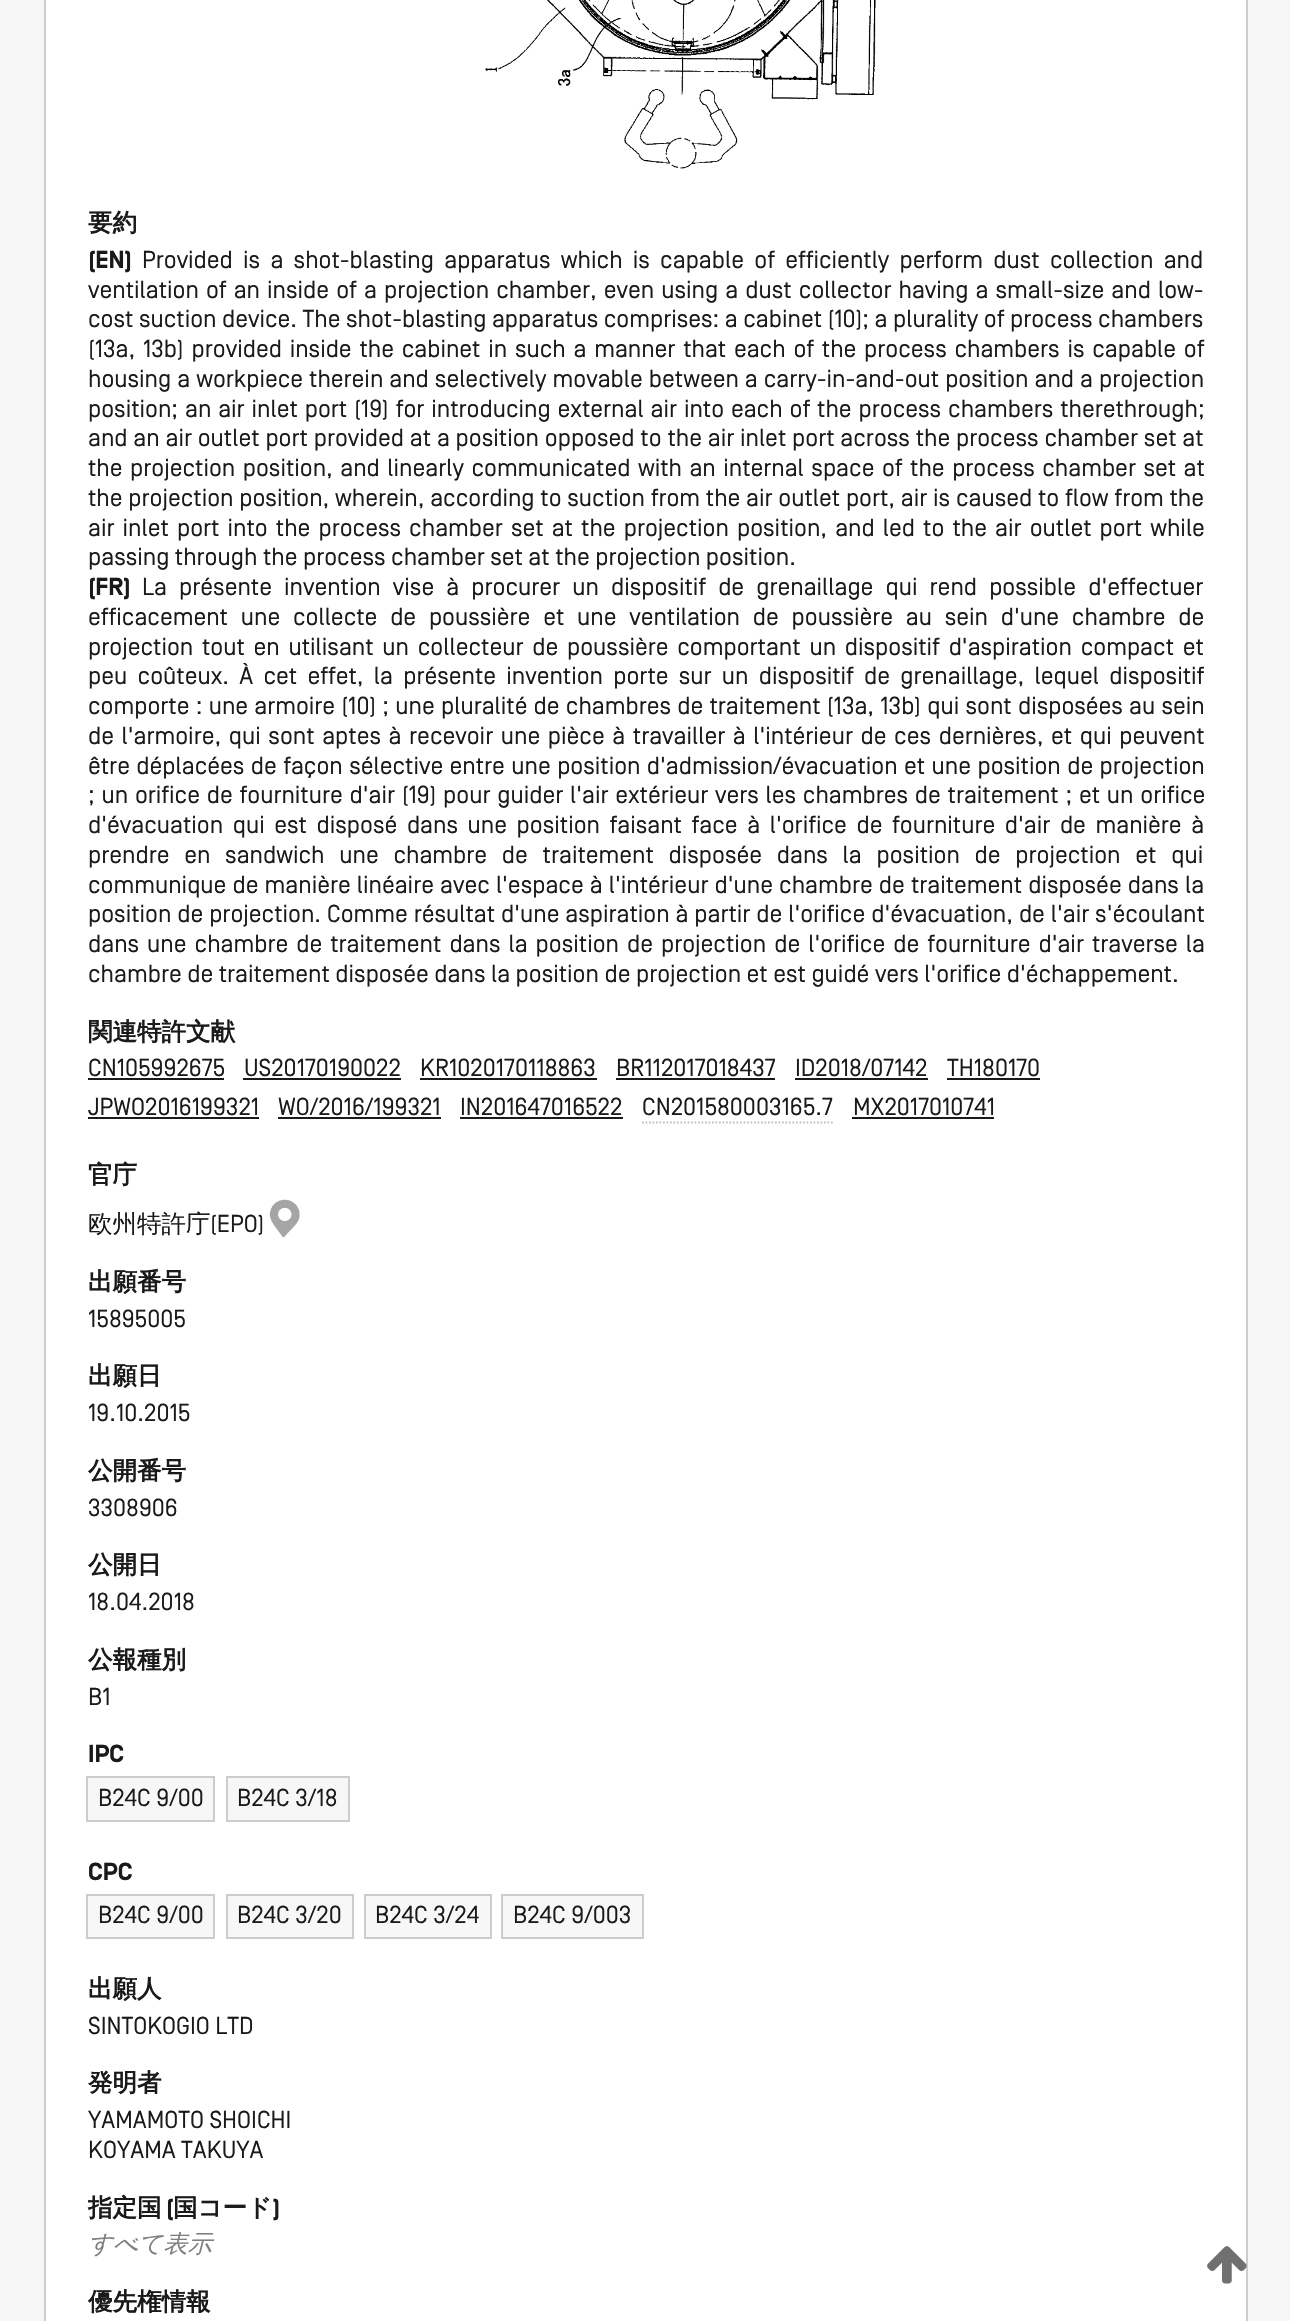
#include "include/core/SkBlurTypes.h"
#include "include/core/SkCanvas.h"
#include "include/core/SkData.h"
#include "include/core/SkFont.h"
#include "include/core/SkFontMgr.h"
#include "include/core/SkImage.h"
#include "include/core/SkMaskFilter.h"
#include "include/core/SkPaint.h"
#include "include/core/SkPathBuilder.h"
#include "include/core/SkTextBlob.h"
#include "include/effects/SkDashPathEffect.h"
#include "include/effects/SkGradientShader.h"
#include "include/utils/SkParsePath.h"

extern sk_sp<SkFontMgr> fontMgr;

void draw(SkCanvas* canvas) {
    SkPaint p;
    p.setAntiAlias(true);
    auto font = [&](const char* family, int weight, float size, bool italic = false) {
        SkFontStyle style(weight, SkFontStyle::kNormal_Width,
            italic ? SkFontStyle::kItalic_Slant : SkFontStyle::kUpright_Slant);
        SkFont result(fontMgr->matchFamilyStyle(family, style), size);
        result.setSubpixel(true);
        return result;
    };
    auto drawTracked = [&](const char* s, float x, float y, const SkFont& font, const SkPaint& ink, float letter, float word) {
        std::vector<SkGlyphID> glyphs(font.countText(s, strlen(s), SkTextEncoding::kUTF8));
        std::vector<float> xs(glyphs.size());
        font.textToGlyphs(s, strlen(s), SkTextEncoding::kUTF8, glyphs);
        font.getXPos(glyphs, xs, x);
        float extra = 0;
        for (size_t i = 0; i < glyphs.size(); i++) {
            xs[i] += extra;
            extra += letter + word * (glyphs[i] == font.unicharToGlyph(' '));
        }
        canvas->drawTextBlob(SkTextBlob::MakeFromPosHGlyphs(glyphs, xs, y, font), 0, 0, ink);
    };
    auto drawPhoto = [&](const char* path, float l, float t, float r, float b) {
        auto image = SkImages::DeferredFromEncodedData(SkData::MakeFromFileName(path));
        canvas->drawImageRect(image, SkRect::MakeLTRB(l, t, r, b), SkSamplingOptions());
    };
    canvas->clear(0xFFF7F7F7);
    p.setColor(0xFFFFFFFF);
    canvas->drawRect(SkRect::MakeLTRB(46, 0, 1246, 2321), p);
    drawPhoto("media/1.png", 485, 0, 876, 169);
    {
        const struct { float l, t, r, b; SkColor color; } items[] = {
            {88, 1078, 224, 1080, 0xFF1A1A1A},
            {243, 1078, 401, 1080, 0xFF1A1A1A},
            {420, 1078, 597, 1080, 0xFF1A1A1A},
            {616, 1078, 775, 1080, 0xFF1A1A1A},
            {795, 1078, 928, 1080, 0xFF1A1A1A},
            {947, 1078, 1040, 1080, 0xFF1A1A1A},
            {88, 1117, 259, 1119, 0xFF1A1A1A},
            {278, 1117, 441, 1119, 0xFF1A1A1A},
            {460, 1117, 623, 1119, 0xFF1A1A1A},
            {852, 1117, 994, 1119, 0xFF1A1A1A},
            {88, 1778, 213, 1820, 0xFFF7F7F7},
        };
        for (auto [l, t, r, b, color] : items) {
            p.setColor(color);
            canvas->drawRect(SkRect::MakeLTRB(l, t, r, b), p);
        }
    }
    p.setStyle(SkPaint::kStroke_Style);
    p.setStrokeWidth(2);
    p.setColor(0xFFCCCCCC);
    canvas->drawRect(SkRect::MakeLTRB(87, 1777, 214, 1821), p);
    p.setStyle(SkPaint::kFill_Style);
    p.setColor(0xFFF7F7F7);
    canvas->drawRect(SkRect::MakeLTRB(228, 1778, 348, 1820), p);
    p.setStyle(SkPaint::kStroke_Style);
    p.setColor(0xFFCCCCCC);
    canvas->drawRect(SkRect::MakeLTRB(227, 1777, 349, 1821), p);
    p.setStyle(SkPaint::kFill_Style);
    p.setColor(0xFFF7F7F7);
    canvas->drawRect(SkRect::MakeLTRB(88, 1896, 213, 1937), p);
    p.setStyle(SkPaint::kStroke_Style);
    p.setColor(0xFFCCCCCC);
    canvas->drawRect(SkRect::MakeLTRB(87, 1895, 214, 1938), p);
    p.setStyle(SkPaint::kFill_Style);
    p.setColor(0xFFF7F7F7);
    canvas->drawRect(SkRect::MakeLTRB(228, 1896, 352, 1937), p);
    p.setStyle(SkPaint::kStroke_Style);
    p.setColor(0xFFCCCCCC);
    canvas->drawRect(SkRect::MakeLTRB(227, 1895, 353, 1938), p);
    p.setStyle(SkPaint::kFill_Style);
    p.setColor(0xFFF7F7F7);
    canvas->drawRect(SkRect::MakeLTRB(366, 1896, 490, 1937), p);
    p.setStyle(SkPaint::kStroke_Style);
    p.setColor(0xFFCCCCCC);
    canvas->drawRect(SkRect::MakeLTRB(365, 1895, 491, 1938), p);
    p.setStyle(SkPaint::kFill_Style);
    p.setColor(0xFFF7F7F7);
    canvas->drawRect(SkRect::MakeLTRB(503, 1896, 642, 1937), p);
    p.setStyle(SkPaint::kStroke_Style);
    p.setColor(0xFFCCCCCC);
    canvas->drawRect(SkRect::MakeLTRB(502, 1895, 643, 1938), p);
    canvas->drawRect(SkRect::MakeLTRB(45, -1, 1247, 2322), p);
    auto font1 = font("WenQuanYi Zen Hei", 700, 24.5f);
    p.setStyle(SkPaint::kFill_Style);
    p.setColor(0xFF1A1A1A);
    canvas->drawString("要約", 88, 231, font1, p);
    auto font2 = font("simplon", 700, 24.5f);
    canvas->drawString("(EN)", 88, 268, font2, p);
    auto font3 = font("simplon", 400, 24.5f);
    drawTracked("Provided is a shot-blasting apparatus which is capable of efficiently perform dust collection and", 142, 268, font3, p, 0, 4.75f);
    drawTracked("ventilation of an inside of a projection chamber, even using a dust collector having a small-size and low-", 88, 298, font3, p, 0, 1.6f);
    canvas->drawString("cost suction device. The shot-blasting apparatus comprises: a cabinet (10); a plurality of process chambers", 88, 327, font3, p);
    drawTracked("(13a, 13b) provided inside the cabinet in such a manner that each of the process chambers is capable of", 88, 357, font3, p, 0, 2.25f);
    drawTracked("housing a workpiece therein and selectively movable between a carry-in-and-out position and a projection", 88, 387, font3, p, 0, 0.5f);
    drawTracked("position; an air inlet port (19) for introducing external air into each of the process chambers therethrough;", 88, 417, font3, p, 0, 1.4f);
    drawTracked("and an air outlet port provided at a position opposed to the air inlet port across the process chamber set at", 88, 446, font3, p, 0, 0.3f);
    drawTracked("the projection position, and linearly communicated with an internal space of the process chamber set at", 88, 476, font3, p, 0, 2);
    drawTracked("the projection position, wherein, according to suction from the air outlet port, air is caused to flow from the", 88, 506, font3, p, 0, 0.25f);
    drawTracked("air inlet port into the process chamber set at the projection position, and led to the air outlet port while", 88, 536, font3, p, 0, 2.6f);
    canvas->drawString("passing through the process chamber set at the projection position.", 88, 565, font3, p);
    canvas->drawString("(FR)", 88, 595, font2, p);
    drawTracked("La présente invention vise à procurer un dispositif de grenaillage qui rend possible d'effectuer", 142, 595, font3, p, 0, 6.6f);
    drawTracked("efficacement une collecte de poussière et une ventilation de poussière au sein d'une chambre de", 88, 625, font3, p, 0, 7.25f);
    drawTracked("projection tout en utilisant un collecteur de poussière comportant un dispositif d'aspiration compact et", 88, 655, font3, p, 0, 3.25f);
    drawTracked("peu coûteux. À cet effet, la présente invention porte sur un dispositif de grenaillage, lequel dispositif", 88, 684, font3, p, 0, 4.75f);
    drawTracked("comporte : une armoire (10) ; une pluralité de chambres de traitement (13a, 13b) qui sont disposées au sein", 88, 714, font3, p, 0, 0.7f);
    drawTracked("de l'armoire, qui sont aptes à recevoir une pièce à travailler à l'intérieur de ces dernières, et qui peuvent", 88, 744, font3, p, 0, 2.1f);
    drawTracked("être déplacées de façon sélective entre une position d'admission/évacuation et une position de projection", 88, 774, font3, p, 0, 0.9f);
    drawTracked("; un orifice de fourniture d'air (19) pour guider l'air extérieur vers les chambres de traitement ; et un orifice", 88, 803, font3, p, 0, 1.25f);
    drawTracked("d'évacuation qui est disposé dans une position faisant face à l'orifice de fourniture d'air de manière à", 88, 833, font3, p, 0, 4.1f);
    drawTracked("prendre en sandwich une chambre de traitement disposée dans la position de projection et qui", 88, 863, font3, p, 0, 9.25f);
    drawTracked("communique de manière linéaire avec l'espace à l'intérieur d'une chambre de traitement disposée dans la", 88, 893, font3, p, 0, 0.6f);
    drawTracked("position de projection. Comme résultat d'une aspiration à partir de l'orifice d'évacuation, de l'air s'écoulant", 88, 922, font3, p, 0, 0.4f);
    drawTracked("dans une chambre de traitement dans la position de projection de l'orifice de fourniture d'air traverse la", 88, 952, font3, p, 0, 2.5f);
    canvas->drawString("chambre de traitement disposée dans la position de projection et est guidé vers l'orifice d'échappement.", 88, 982, font3, p);
    canvas->drawString("関連特許文献", 88, 1040, font1, p);
    {
        const struct { const char* s; float x, y; } items[] = {
            {"CN105992675", 88, 1076},
            {"US20170190022", 244, 1076},
            {"KR1020170118863", 420, 1076},
            {"BR112017018437", 616, 1076},
            {"ID2018/07142", 795, 1076},
            {"TH180170", 947, 1076},
            {"JPWO2016199321", 88, 1115},
            {"WO/2016/199321", 278, 1115},
            {"IN201647016522", 460, 1115},
        };
        for (auto [s, x, y] : items) {
            canvas->drawString(s, x, y, font3, p);
        }
    }
    p.setStyle(SkPaint::kStroke_Style);
    p.setStrokeWidth(1.8f);
    p.setColor(0xFFC0C0C0);
    p.setPathEffect(SkDashPathEffect::Make({{1.75f, 1.75f}}, 0));
    canvas->drawPath(SkPathBuilder().moveTo(642, 1122.5f).lineTo(833, 1122.5f).detach(), p);
    p.setPathEffect(nullptr);
    p.setStyle(SkPaint::kFill_Style);
    p.setColor(0xFF1A1A1A);
    canvas->drawString("CN201580003165.7", 642, 1115, font3, p);
    canvas->drawString("MX2017010741", 853, 1115, font3, p);
    canvas->drawString("官庁", 88, 1183, font1, p);
    auto font4 = font("WenQuanYi Zen Hei", 500, 24.5f);
    canvas->drawString("欧州特許庁", 88, 1232, font4, p);
    canvas->drawString("(EPO)", 210, 1232, font3, p);
    drawPhoto("media/2.png", 269, 1199, 300, 1238);
    canvas->drawString("出願番号", 88, 1290, font1, p);
    canvas->drawString("15895005", 88, 1327, font3, p);
    canvas->drawString("出願日", 88, 1384, font1, p);
    canvas->drawString("19.10.2015", 88, 1421, font3, p);
    canvas->drawString("公開番号", 88, 1479, font1, p);
    canvas->drawString("3308906", 88, 1516, font3, p);
    canvas->drawString("公開日", 88, 1573, font1, p);
    canvas->drawString("18.04.2018", 88, 1610, font3, p);
    canvas->drawString("公報種別", 88, 1668, font1, p);
    canvas->drawString("B1", 88, 1705, font3, p);
    canvas->drawString("IPC", 88, 1762, font2, p);
    canvas->drawString("B24C 9/00", 98, 1806, font3, p);
    canvas->drawString("B24C 3/18", 237, 1806, font3, p);
    canvas->drawString("CPC", 88, 1880, font2, p);
    {
        const struct { const char* s; float x, y; } items[] = {
            {"B24C 9/00", 98, 1923},
            {"B24C 3/20", 237, 1923},
            {"B24C 3/24", 375, 1923},
            {"B24C 9/003", 513, 1923},
        };
        for (auto [s, x, y] : items) {
            canvas->drawString(s, x, y, font3, p);
        }
    }
    canvas->drawString("出願人", 88, 1997, font1, p);
    canvas->drawString("SINTOKOGIO LTD", 88, 2034, font3, p);
    canvas->drawString("発明者", 88, 2091, font1, p);
    canvas->drawString("YAMAMOTO SHOICHI", 88, 2128, font3, p);
    canvas->drawString("KOYAMA TAKUYA", 88, 2158, font3, p);
    canvas->drawString("指定国", 88, 2216, font1, p);
    canvas->drawString("(", 166, 2216, font2, p);
    canvas->drawString("国コード", 173, 2216, font1, p);
    canvas->drawString(")", 273, 2216, font2, p);
    auto font5 = font("WenQuanYi Zen Hei", 500, 24.5f, true);
    p.setColor(0xFF808080);
    canvas->drawString("すべて表示", 88, 2252, font5, p);
    p.setColor(0xFF1A1A1A);
    canvas->drawString("優先権情報", 88, 2310, font1, p);
    drawPhoto("media/3.png", 1207, 2246, 1247, 2284);
}
